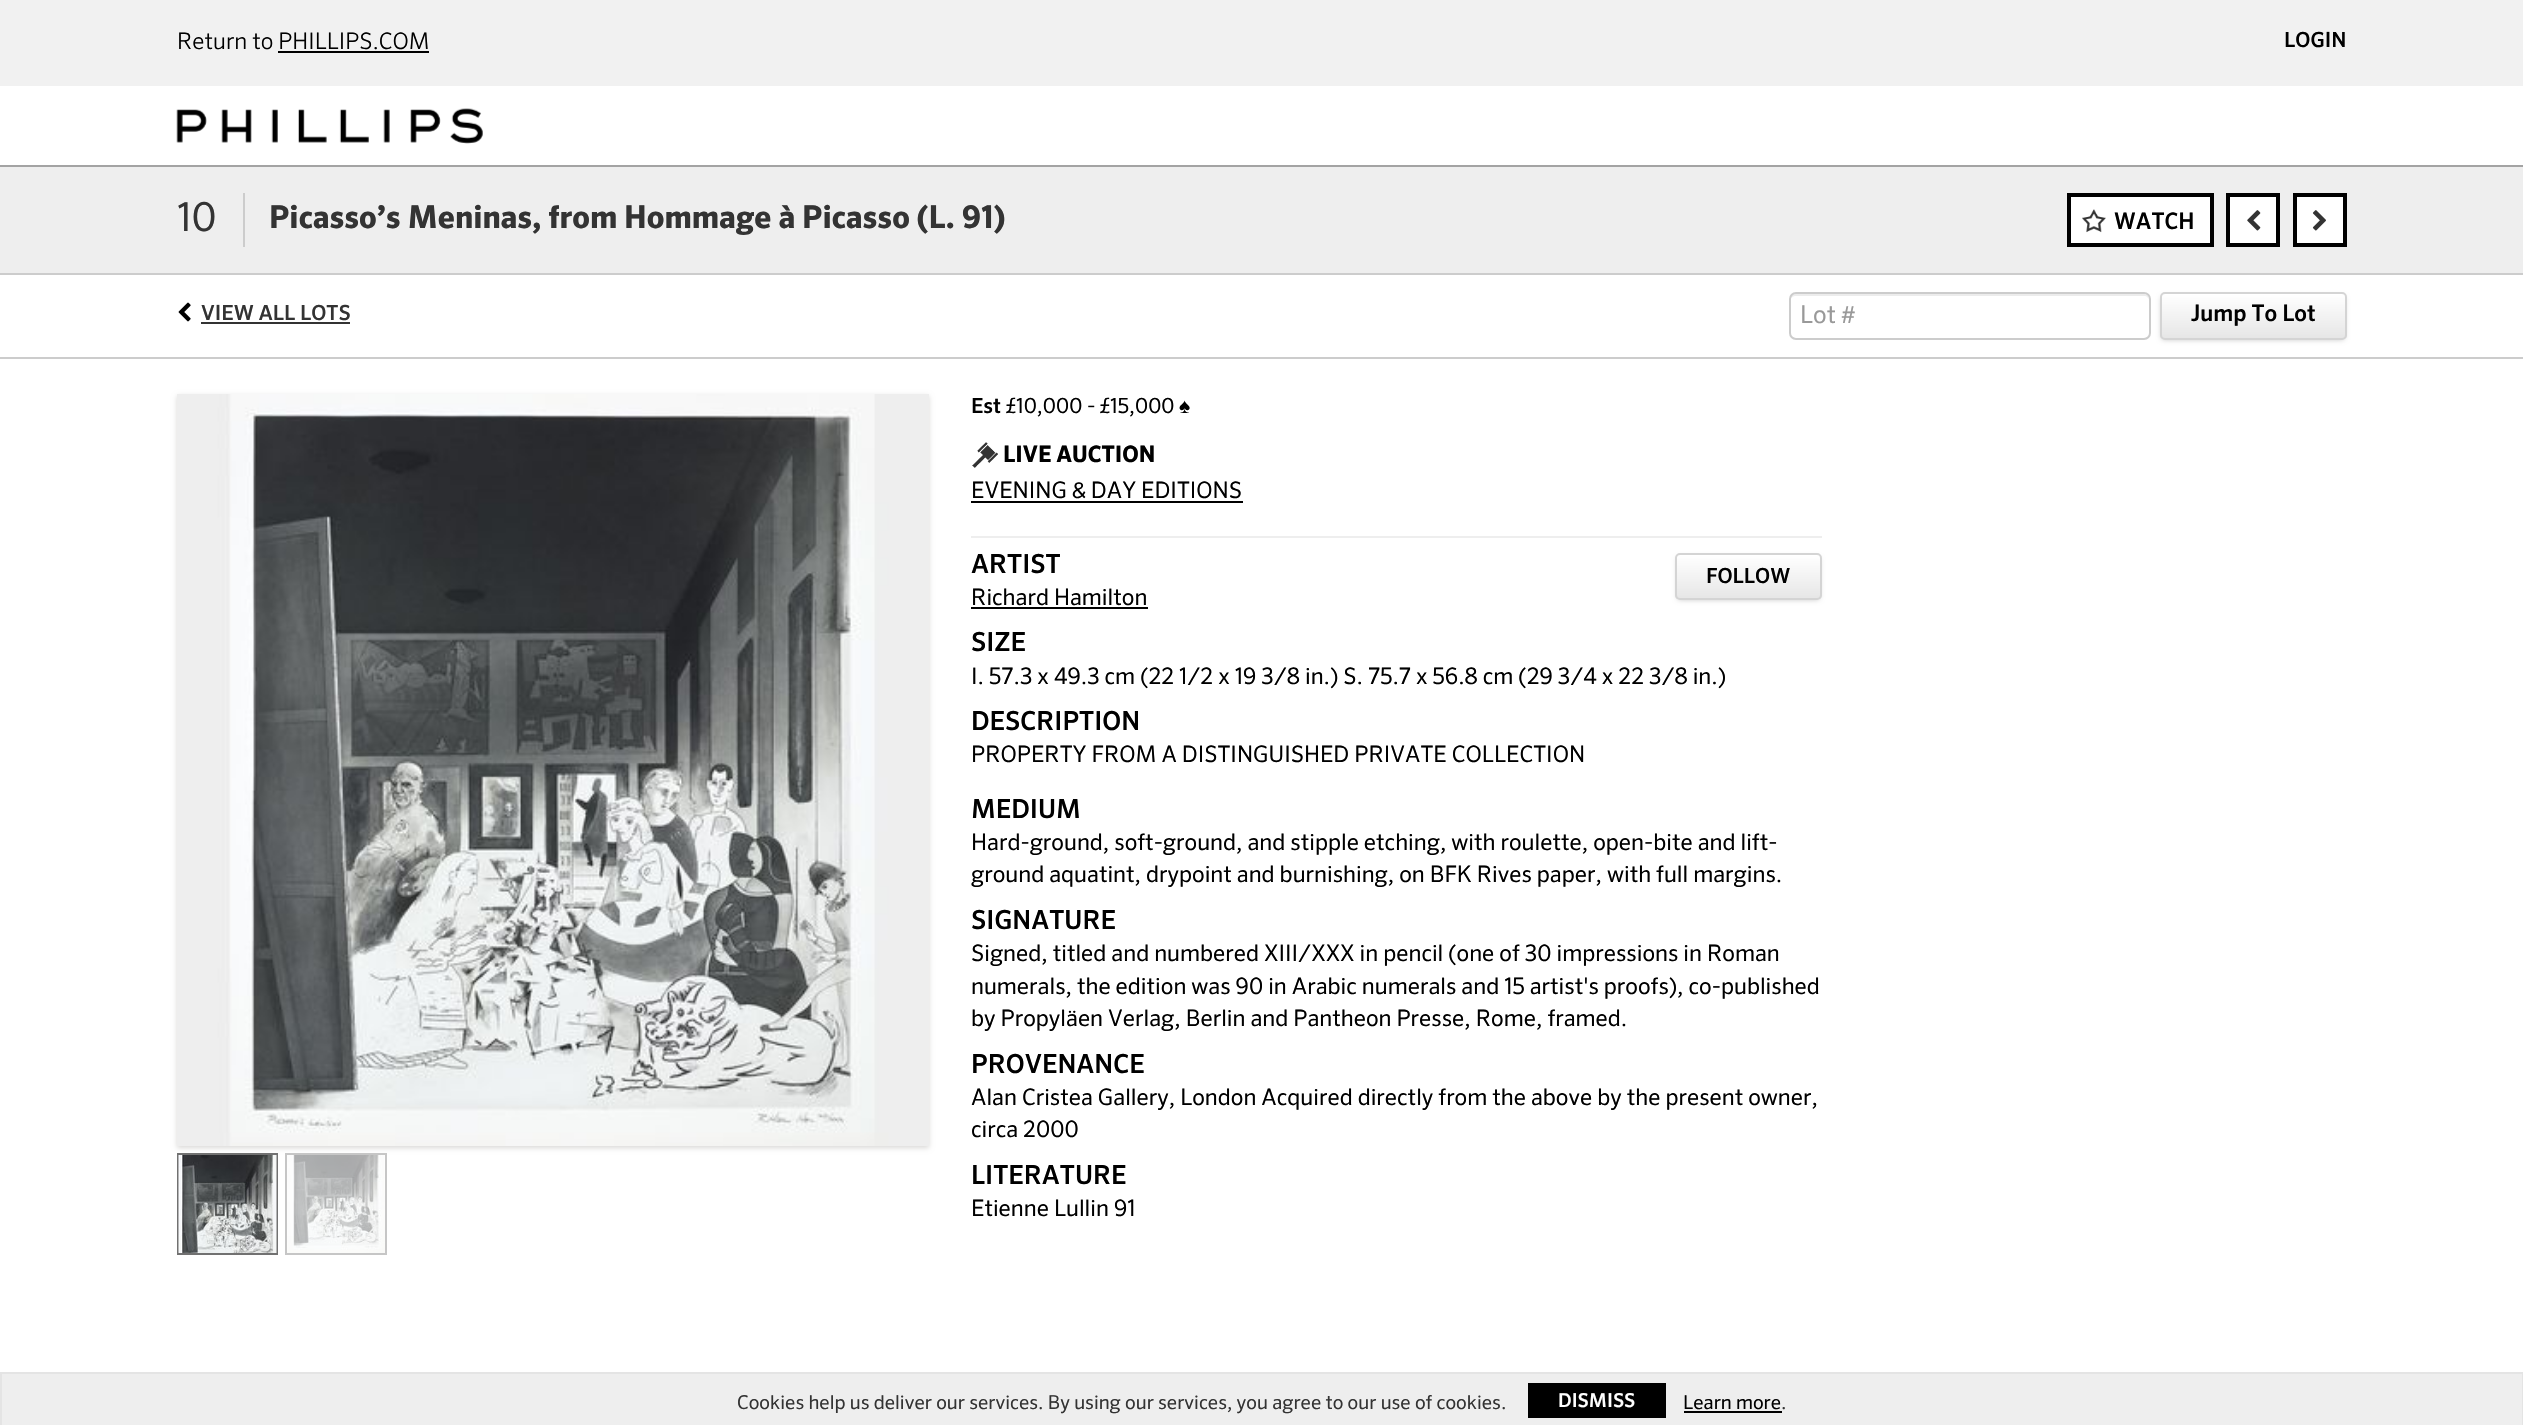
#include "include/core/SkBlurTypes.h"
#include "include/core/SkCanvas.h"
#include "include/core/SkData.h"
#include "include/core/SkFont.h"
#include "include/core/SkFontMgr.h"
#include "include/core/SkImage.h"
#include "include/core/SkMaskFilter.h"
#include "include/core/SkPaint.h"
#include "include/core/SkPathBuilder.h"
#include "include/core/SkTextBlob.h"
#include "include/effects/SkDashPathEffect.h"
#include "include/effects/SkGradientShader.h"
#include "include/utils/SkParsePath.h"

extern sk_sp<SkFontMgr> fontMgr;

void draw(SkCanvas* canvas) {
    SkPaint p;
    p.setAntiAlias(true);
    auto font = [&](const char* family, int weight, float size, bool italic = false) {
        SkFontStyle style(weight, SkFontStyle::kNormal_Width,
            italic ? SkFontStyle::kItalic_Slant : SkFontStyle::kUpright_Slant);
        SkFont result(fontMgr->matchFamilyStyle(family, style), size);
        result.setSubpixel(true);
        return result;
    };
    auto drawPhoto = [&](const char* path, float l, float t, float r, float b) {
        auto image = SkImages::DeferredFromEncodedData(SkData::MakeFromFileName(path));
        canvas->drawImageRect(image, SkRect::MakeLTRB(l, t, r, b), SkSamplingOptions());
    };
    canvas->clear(0xFFFFFFFF);
    p.setColor(0xFFA3A3A3);
    canvas->drawRect(SkRect::MakeLTRB(0, 165, 2523, 167), p);
    p.setColor(0xFFF1F1F1);
    canvas->drawRect(SkRect::MakeLTRB(0, 0, 2523, 86), p);
    auto font1 = font("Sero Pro", 300, 22.75f);
    p.setColor(0xFF000000);
    canvas->drawString("Return to PHILLIPS.COM", 177, 49, font1, p);
    canvas->drawRect(SkRect::MakeLTRB(278, 51, 429, 53), p);
    auto font2 = font("Sero Pro", 500, 21);
    canvas->drawString("LOGIN", 2284, 47, font2, p);
    drawPhoto("media/1.png", 176, 108, 483, 144);
    p.setColor(0xFFEEEEEE);
    canvas->drawRect(SkRect::MakeLTRB(0, 167, 2523, 273), p);
    p.setColor(0xFFCCCCCC);
    canvas->drawRect(SkRect::MakeLTRB(0, 273, 2523, 275), p);
    auto font3 = font("Sero Pro", 400, 40);
    p.setColor(0xFF333333);
    canvas->drawString("10", 177, 231, font3, p);
    p.setColor(0xFFCCCCCC);
    canvas->drawRect(SkRect::MakeLTRB(243, 193, 245, 247), p);
    auto font4 = font("Sero Pro", 700, 31.5f);
    p.setColor(0xFF333333);
    canvas->drawString("Picasso’s Meninas, from Hommage à Picasso (L. 91)", 269, 228, font4, p);
    p.setColor(0xFFFFFFFF);
    canvas->drawRect(SkRect::MakeLTRB(2069, 195, 2212, 245), p);
    p.setStyle(SkPaint::kStroke_Style);
    p.setStrokeWidth(4);
    p.setColor(0xFF000000);
    canvas->drawRect(SkRect::MakeLTRB(2069, 195, 2212, 245), p);
    drawPhoto("media/2.png", 2082, 209, 2106, 233);
    auto font5 = font("Sero Pro", 500, 22.75f);
    p.setStyle(SkPaint::kFill_Style);
    canvas->drawString("WATCH", 2114, 229, font5, p);
    p.setColor(0xFFFFFFFF);
    canvas->drawRect(SkRect::MakeLTRB(2228, 195, 2278, 245), p);
    p.setStyle(SkPaint::kStroke_Style);
    p.setColor(0xFF000000);
    canvas->drawRect(SkRect::MakeLTRB(2228, 195, 2278, 245), p);
    drawPhoto("media/3.png", 2247, 210, 2261, 231);
    p.setStyle(SkPaint::kFill_Style);
    p.setColor(0xFFFFFFFF);
    canvas->drawRect(SkRect::MakeLTRB(2295, 195, 2345, 245), p);
    p.setStyle(SkPaint::kStroke_Style);
    p.setColor(0xFF000000);
    canvas->drawRect(SkRect::MakeLTRB(2295, 195, 2345, 245), p);
    drawPhoto("media/4.png", 2312, 210, 2326, 231);
    drawPhoto("media/5.png", 178, 302, 191, 322);
    p.setStyle(SkPaint::kFill_Style);
    p.setColor(0xFF333333);
    canvas->drawString("VIEW ALL LOTS", 201, 320, font2, p);
    canvas->drawRect(SkRect::MakeLTRB(201, 322, 350, 324), p);
    p.setColor(0xFFECECEC);
    canvas->drawPath(SkPathBuilder().moveTo(1796, 296).lineTo(2144, 296).cubicTo(2147, 296, 2149, 298, 2149, 301).cubicTo(2149, 298, 2148, 294, 2144, 294).lineTo(1795, 294).cubicTo(1791, 294, 1790, 298, 1790, 301).cubicTo(1790, 298, 1793, 296, 1796, 296).close().detach(), p);
    p.setStyle(SkPaint::kStroke_Style);
    p.setStrokeWidth(2);
    p.setColor(0xFFCCCCCC);
    canvas->drawRoundRect(SkRect::MakeLTRB(1790, 293, 2150, 339), 6, 6, p);
    auto font6 = font("Sero Pro", 400, 24.5f);
    p.setStyle(SkPaint::kFill_Style);
    p.setColor(0xFF999999);
    canvas->drawString("Lot #", 1800, 323, font6, p);
    p.setColor(0x33000000);
    p.setMaskFilter(SkMaskFilter::MakeBlur(kNormal_SkBlurStyle, 2.5f));
    canvas->drawRoundRect(SkRect::MakeLTRB(2161, 296, 2345, 340), 4, 4, p);
    p.setMaskFilter(nullptr);
    canvas->save();
    canvas->clipPath(SkPathBuilder().moveTo(2165, 292).lineTo(2342, 292).cubicTo(2345, 292, 2347, 294, 2347, 297).lineTo(2347, 335).cubicTo(2347, 338, 2345, 340, 2342, 340).lineTo(2165, 340).cubicTo(2162, 340, 2160, 338, 2160, 335).lineTo(2160, 297).cubicTo(2160, 294, 2162, 292, 2165, 292).close().detach(), true);
    {
        const SkColor colors[] = {0xFFFFFFFF, 0xFFE6E6E6};
        const float stops[] = {0, 1};
        const SkPoint ends[] = {{2253, 294}, {2253, 338}};
        p.setShader(SkGradientShader::MakeLinear(ends, colors, stops, 2, SkTileMode::kClamp));
        p.setAlpha(255);
    }
    canvas->drawRect(SkRect::MakeLTRB(2160, 294, 2347, 338), p);
    canvas->restore();
    p.setStyle(SkPaint::kStroke_Style);
    p.setShader(nullptr);
    p.setColor(0xFFD4D4D4);
    canvas->drawRoundRect(SkRect::MakeLTRB(2161, 293, 2346, 339), 4, 4, p);
    p.setStyle(SkPaint::kFill_Style);
    p.setColor(0xFF000000);
    canvas->drawString("Jump To Lot", 2191, 321, font5, p);
    p.setColor(0xFFCCCCCC);
    canvas->drawRect(SkRect::MakeLTRB(0, 357, 2523, 359), p);
    p.setColor(0xFFDAD9D7);
    p.setMaskFilter(SkMaskFilter::MakeBlur(kNormal_SkBlurStyle, 2.5f));
    canvas->drawRect(SkRect::MakeLTRB(177, 396, 929, 1148), p);
    p.setMaskFilter(nullptr);
    drawPhoto("media/6.png", 177, 394, 929, 1146);
    p.setStyle(SkPaint::kStroke_Style);
    p.setColor(0xFF717171);
    canvas->drawRect(SkRect::MakeLTRB(178, 1154, 277, 1254), p);
    p.setColor(0xFFC6C6C6);
    canvas->drawRect(SkRect::MakeLTRB(286, 1154, 386, 1254), p);
    drawPhoto("media/7.png", 178, 1155, 277, 1253);
    drawPhoto("media/8.png", 287, 1155, 385, 1253);
    p.setStyle(SkPaint::kFill_Style);
    p.setColor(0xFF000000);
    canvas->drawString("Est", 971, 413, font2, p);
    auto font7 = font("Sero Pro", 400, 21);
    canvas->drawString("£10,000 - £15,000", 1006, 413, font7, p);
    auto font8 = font("Liberation Sans", 400, 21);
    canvas->drawString("♠", 1179, 413, font8, p);
    drawPhoto("media/9.png", 972, 442, 998, 468);
    auto font9 = font("Sero Pro", 700, 22.75f);
    canvas->drawString("LIVE AUCTION", 1003, 462, font9, p);
    auto font10 = font("Sero Pro", 400, 22.75f);
    canvas->drawString("EVENING & DAY EDITIONS", 971, 498, font10, p);
    canvas->drawRect(SkRect::MakeLTRB(971, 501, 1243, 503), p);
    p.setColor(0xFFEEEEEE);
    canvas->drawRect(SkRect::MakeLTRB(971, 536, 1822, 538), p);
    auto font11 = font("Sero Pro", 500, 26.25f);
    p.setColor(0xFF000000);
    canvas->drawString("ARTIST", 971, 573, font11, p);
    p.setColor(0x33000000);
    p.setMaskFilter(SkMaskFilter::MakeBlur(kNormal_SkBlurStyle, 2.5f));
    canvas->drawRoundRect(SkRect::MakeLTRB(1677, 557, 1820, 600), 4, 4, p);
    p.setMaskFilter(nullptr);
    canvas->save();
    canvas->clipPath(SkPathBuilder().moveTo(1680, 553).lineTo(1817, 553).cubicTo(1820, 553, 1822, 555, 1822, 558).lineTo(1822, 595).cubicTo(1822, 598, 1820, 600, 1817, 600).lineTo(1680, 600).cubicTo(1677, 600, 1675, 598, 1675, 595).lineTo(1675, 558).cubicTo(1675, 555, 1677, 553, 1680, 553).close().detach(), true);
    {
        const SkColor colors[] = {0xFFFFFFFF, 0xFFE6E6E6};
        const float stops[] = {0, 1};
        const SkPoint ends[] = {{1748, 555}, {1748, 599}};
        p.setShader(SkGradientShader::MakeLinear(ends, colors, stops, 2, SkTileMode::kClamp));
        p.setAlpha(255);
    }
    canvas->drawRect(SkRect::MakeLTRB(1675, 555, 1822, 599), p);
    canvas->restore();
    p.setStyle(SkPaint::kStroke_Style);
    p.setShader(nullptr);
    p.setColor(0xFFD4D4D4);
    canvas->drawRoundRect(SkRect::MakeLTRB(1676, 554, 1821, 599), 4, 4, p);
    p.setStyle(SkPaint::kFill_Style);
    p.setColor(0xFF000000);
    canvas->drawString("FOLLOW", 1706, 583, font2, p);
    canvas->drawString("Richard Hamilton", 971, 605, font10, p);
    canvas->drawRect(SkRect::MakeLTRB(971, 607, 1148, 609), p);
    canvas->drawString("SIZE", 971, 651, font11, p);
    canvas->drawString("I. 57.3 x 49.3 cm (22 1/2 x 19 3/8 in.) S. 75.7 x 56.8 cm (29 3/4 x 22 3/8 in.)", 971, 684, font10, p);
    canvas->drawString("DESCRIPTION", 971, 730, font11, p);
    canvas->drawString("PROPERTY FROM A DISTINGUISHED PRIVATE COLLECTION", 971, 762, font10, p);
    canvas->drawString("MEDIUM", 971, 818, font11, p);
    canvas->drawString("Hard-ground, soft-ground, and stipple etching, with roulette, open-bite and lift-", 971, 850, font10, p);
    canvas->drawString("ground aquatint, drypoint and burnishing, on BFK Rives paper, with full margins.", 971, 882, font10, p);
    canvas->drawString("SIGNATURE", 971, 929, font11, p);
    {
        const struct { const char* s; float x, y; } items[] = {
            {"Signed, titled and numbered XIII/XXX in pencil (one of 30 impressions in Roman", 971, 961},
            {"numerals, the edition was 90 in Arabic numerals and 15 artist's proofs), co-published", 971, 994},
            {"by Propyläen Verlag, Berlin and Pantheon Presse, Rome, framed.", 971, 1026},
        };
        for (auto [s, x, y] : items) {
            canvas->drawString(s, x, y, font10, p);
        }
    }
    canvas->drawString("PROVENANCE", 971, 1073, font11, p);
    canvas->drawString("Alan Cristea Gallery, London Acquired directly from the above by the present owner,", 971, 1105, font10, p);
    canvas->drawString("circa 2000", 971, 1137, font10, p);
    canvas->drawString("LITERATURE", 971, 1184, font11, p);
    canvas->drawString("Etienne Lullin 91", 971, 1216, font10, p);
    {
        const struct { float l, t, r, b; SkColor color; } items[] = {
            {2, 1374, 2522, 1425, 0xFFEEEEEE},
            {0, 1372, 2523, 1374, 0xFFE4E4E4},
            {2522, 1372, 2523, 1425, 0xFFE4E4E4},
            {0, 1372, 2, 1425, 0xFFE4E4E4},
        };
        for (auto [l, t, r, b, color] : items) {
            p.setColor(color);
            canvas->drawRect(SkRect::MakeLTRB(l, t, r, b), p);
        }
    }
    auto font12 = font("Sero Pro", 400, 19.25f);
    p.setColor(0xFF333333);
    canvas->drawString("Cookies help us deliver our services. By using our services, you agree to our use of cookies.", 737, 1409, font12, p);
    p.setColor(0xFF000000);
    canvas->drawRect(SkRect::MakeLTRB(1528, 1383, 1666, 1418), p);
    auto font13 = font("Sero Pro", 500, 19.25f);
    p.setColor(0xFFFFFFFF);
    canvas->drawString("DISMISS", 1558, 1407, font13, p);
    p.setColor(0xFF000000);
    canvas->drawString("Learn more", 1683, 1409, font12, p);
    canvas->drawRect(SkRect::MakeLTRB(1684, 1411, 1782, 1413), p);
    p.setColor(0xFF333333);
    canvas->drawString(".", 1781, 1409, font12, p);
}
